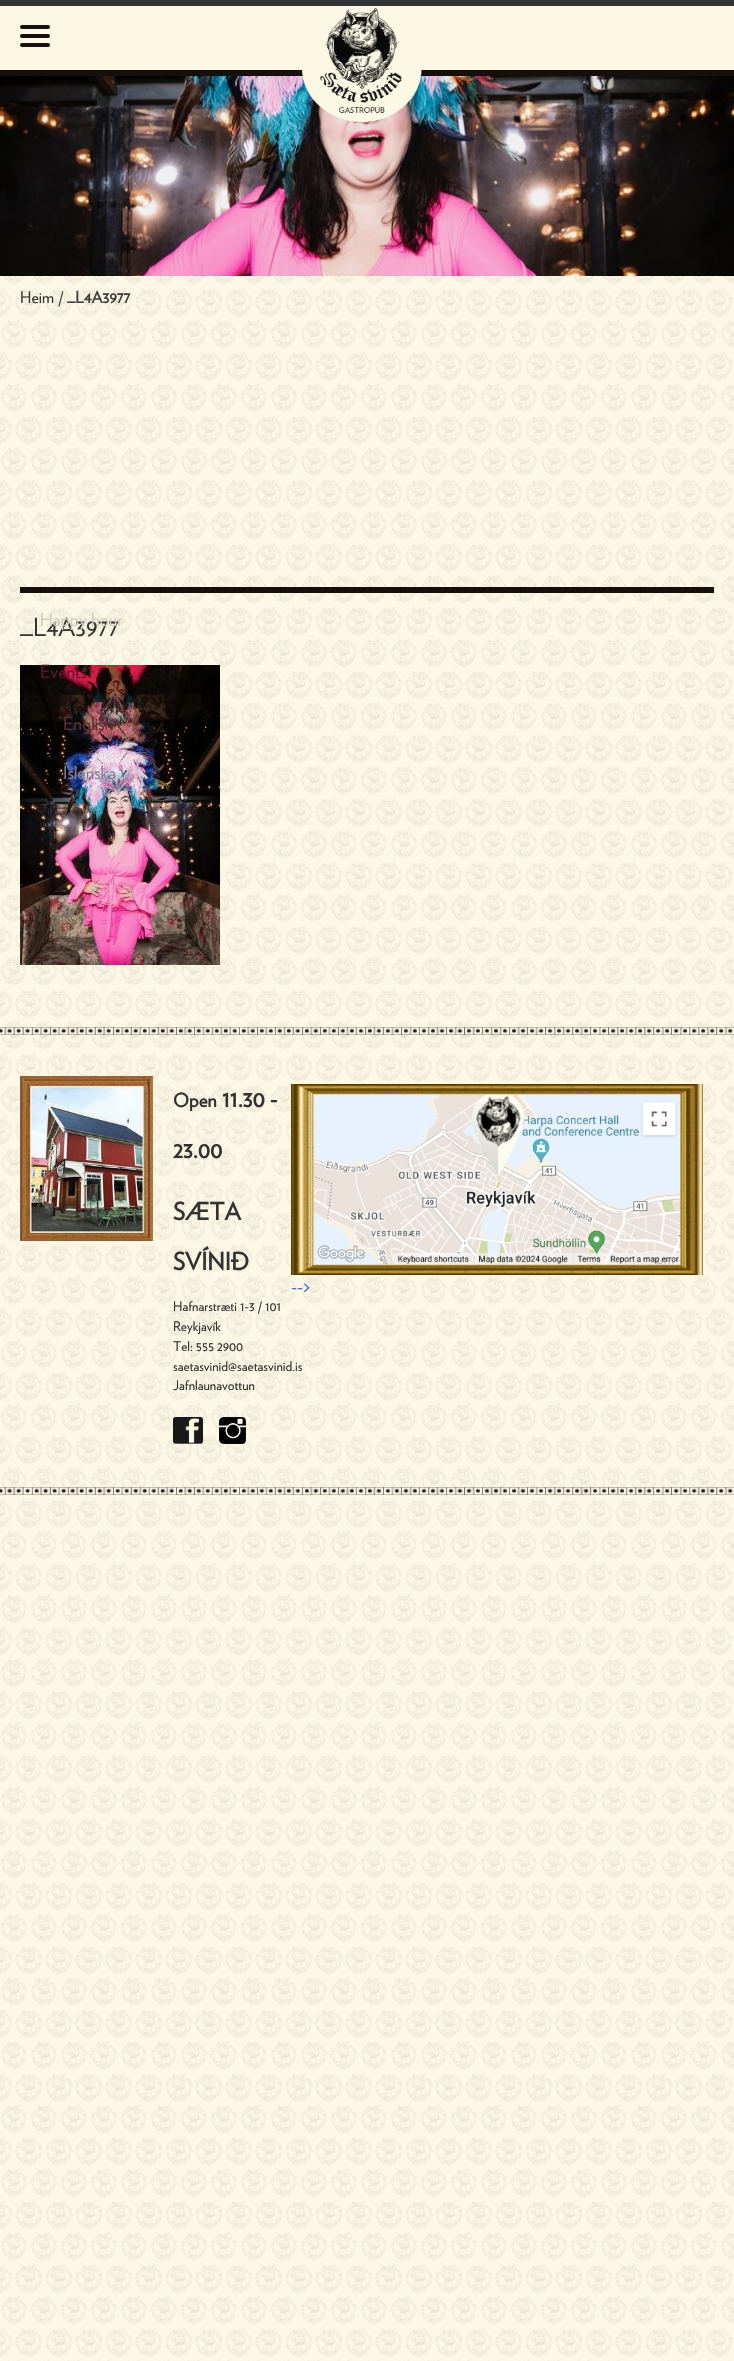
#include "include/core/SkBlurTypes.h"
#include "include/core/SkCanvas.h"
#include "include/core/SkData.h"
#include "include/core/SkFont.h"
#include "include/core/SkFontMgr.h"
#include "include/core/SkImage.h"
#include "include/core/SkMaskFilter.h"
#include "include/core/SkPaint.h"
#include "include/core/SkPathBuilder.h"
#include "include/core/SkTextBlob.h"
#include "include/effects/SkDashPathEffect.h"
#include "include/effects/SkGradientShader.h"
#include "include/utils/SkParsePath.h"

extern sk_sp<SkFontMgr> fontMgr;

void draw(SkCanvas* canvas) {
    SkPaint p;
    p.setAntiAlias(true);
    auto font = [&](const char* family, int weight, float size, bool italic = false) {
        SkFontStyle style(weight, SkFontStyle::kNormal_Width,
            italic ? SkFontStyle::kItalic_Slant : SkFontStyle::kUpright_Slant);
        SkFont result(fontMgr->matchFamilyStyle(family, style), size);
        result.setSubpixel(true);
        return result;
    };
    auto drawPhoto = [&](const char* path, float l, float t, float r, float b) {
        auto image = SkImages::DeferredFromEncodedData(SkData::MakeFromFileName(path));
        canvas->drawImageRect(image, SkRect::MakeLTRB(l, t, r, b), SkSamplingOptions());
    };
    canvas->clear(0xFFFCF8E3);
    drawPhoto("media/1.png", 0, 276, 734, 2361);
    p.setColor(0xFF333333);
    canvas->drawRect(SkRect::MakeLTRB(0, 0, 734, 6), p);
    p.setColor(0xFF150F0E);
    canvas->drawRect(SkRect::MakeLTRB(0, 70, 734, 76), p);
    canvas->drawRoundRect(SkRect::MakeLTRB(20, 25, 50, 29), 2, 2, p);
    canvas->drawRoundRect(SkRect::MakeLTRB(20, 34, 50, 38), 2, 2, p);
    canvas->drawRoundRect(SkRect::MakeLTRB(20, 43, 50, 47), 2, 2, p);
    drawPhoto("media/3.png", 0, 76, 734, 276);
    drawPhoto("media/2.png", 302, 8, 422, 122);
    auto font1 = font("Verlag", 400, 16);
    p.setColor(0xFF333333);
    canvas->drawString("Heim", 20, 303, font1, p);
    p.setColor(0xFF404040);
    canvas->drawString("/", 58, 303, font1, p);
    auto font2 = font("Verlag", 700, 16);
    canvas->drawString("_L4A3977", 67, 303, font2, p);
    p.setColor(0xFF150F0E);
    canvas->drawRect(SkRect::MakeLTRB(20, 587, 714, 593), p);
    auto font3 = font("Verlag", 400, 25);
    p.setColor(0xFF333333);
    canvas->drawString("_L4A3977", 20, 636, font3, p);
    drawPhoto("media/4.png", 20, 665, 220, 965);
    auto font4 = font("Verlag", 400, 18);
    p.setColor(0xFFD0CDBD);
    canvas->drawString("Happy hour", 40, 626, font4, p);
    p.setColor(0xFF5D1827);
    canvas->drawString("Events", 40, 678, font4, p);
    p.setColor(0xFF583436);
    canvas->drawString("English", 63, 730, font4, p);
    p.setColor(0xFF847F99);
    canvas->drawString("Íslenska", 63, 779, font4, p);
    drawPhoto("media/5.png", 0, 1027, 734, 1035);
    drawPhoto("media/6.png", 20, 1076, 153, 1241);
    auto font5 = font("Verlag", 700, 19);
    p.setColor(0xFF333333);
    canvas->drawString("Open", 173, 1107, font5, p);
    auto font6 = font("Verlag", 700, 23);
    canvas->drawString("11.30 -", 222, 1107, font6, p);
    canvas->drawString("23.00", 173, 1158, font6, p);
    auto font7 = font("Verlag", 700, 24);
    canvas->drawString("SÆTA", 173, 1220, font7, p);
    canvas->drawString("SVÍNIÐ", 173, 1270, font7, p);
    auto font8 = font("Verlag", 400, 13.25f);
    {
        const struct { const char* s; float x, y; } items[] = {
            {"Hafnarstræti 1-3 / 101", 173, 1311},
            {"Reykjavík", 173, 1331},
            {"Tel: 555 2900", 173, 1351},
            {"saetasvinid@saetasvinid.is", 173, 1371},
            {"Jafnlaunavottun", 173, 1390},
        };
        for (auto [s, x, y] : items) {
            canvas->drawString(s, x, y, font8, p);
        }
    }
    drawPhoto("media/7.png", 173, 1417, 203, 1444);
    drawPhoto("media/8.png", 219, 1417, 246, 1444);
    drawPhoto("media/9.png", 291, 1084, 703, 1275);
    p.setColor(0xFF4169E1);
    canvas->drawString("-->", 291, 1293, font4, p);
    drawPhoto("media/10.png", 0, 1487, 734, 1495);
}
